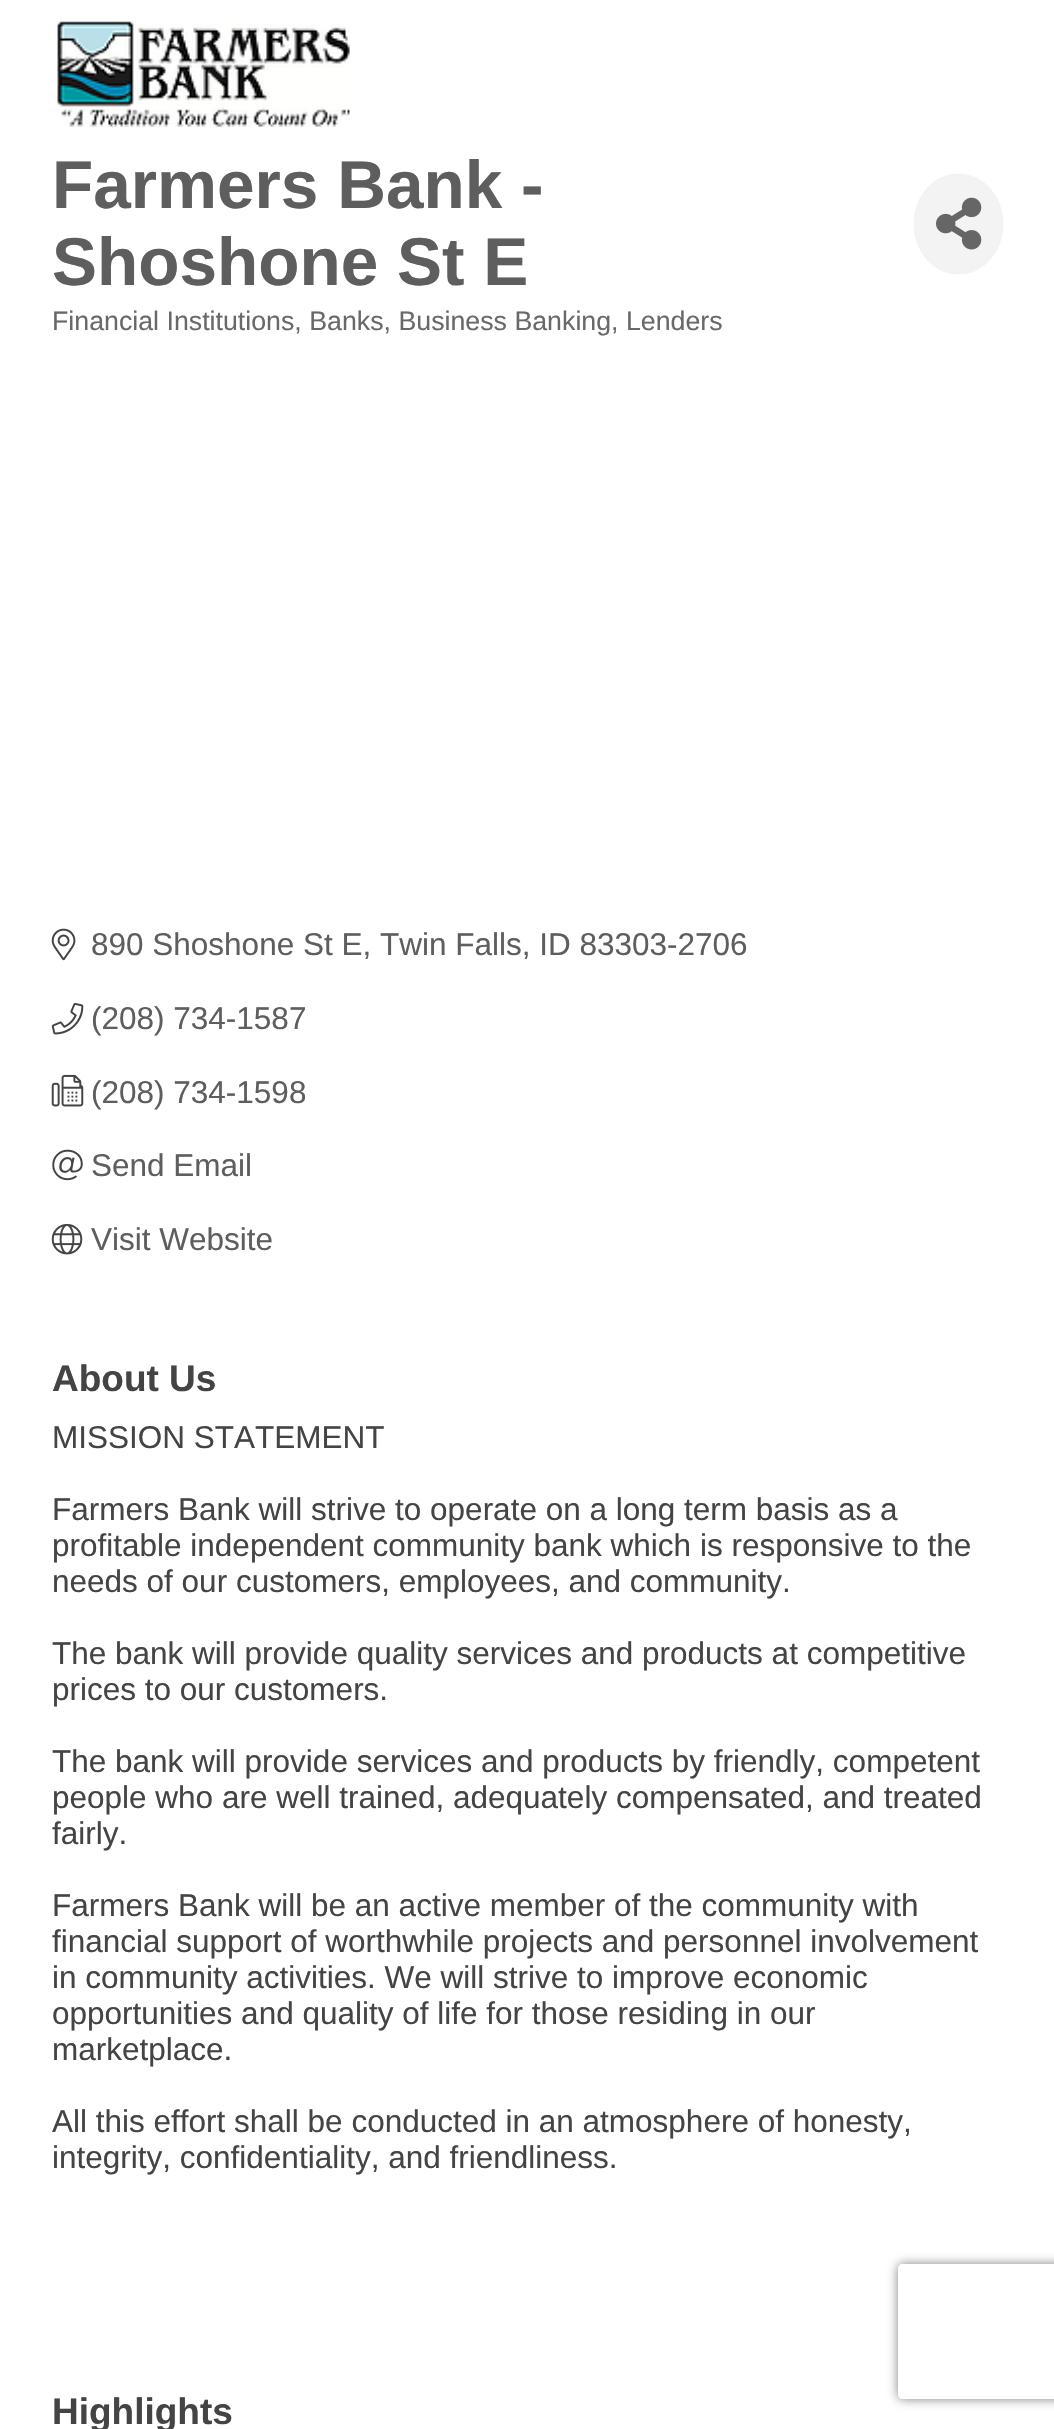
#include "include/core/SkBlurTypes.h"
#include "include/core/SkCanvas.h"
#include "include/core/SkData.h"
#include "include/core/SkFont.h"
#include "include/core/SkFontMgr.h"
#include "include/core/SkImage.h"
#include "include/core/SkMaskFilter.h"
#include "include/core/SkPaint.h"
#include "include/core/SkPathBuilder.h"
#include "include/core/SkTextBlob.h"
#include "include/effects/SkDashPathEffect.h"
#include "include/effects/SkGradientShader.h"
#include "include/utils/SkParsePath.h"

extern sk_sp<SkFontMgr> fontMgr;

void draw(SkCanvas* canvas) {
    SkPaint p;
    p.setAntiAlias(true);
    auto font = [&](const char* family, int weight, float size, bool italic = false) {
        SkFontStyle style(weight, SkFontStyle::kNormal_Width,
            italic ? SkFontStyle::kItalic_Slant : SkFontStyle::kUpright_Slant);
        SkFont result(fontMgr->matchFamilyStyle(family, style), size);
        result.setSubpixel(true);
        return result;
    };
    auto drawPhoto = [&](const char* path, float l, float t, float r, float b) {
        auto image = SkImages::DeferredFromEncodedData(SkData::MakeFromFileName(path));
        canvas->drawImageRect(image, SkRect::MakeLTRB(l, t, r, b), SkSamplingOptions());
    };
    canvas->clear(0xFFFFFFFF);
    drawPhoto("media/1.png", 57, 21, 350, 127);
    auto font1 = font("Liberation Sans", 700, 67.5f);
    p.setColor(0xFF5E5E5E);
    canvas->drawString("Farmers Bank -", 52, 208, font1, p);
    canvas->drawString("Shoshone St E", 52, 285, font1, p);
    p.setColor(0xFFF3F3F3);
    canvas->drawOval(SkRect::MakeLTRB(913.5f, 173.5f, 1003.5f, 274.5f), p);
    drawPhoto("media/2.png", 936, 197, 982, 250);
    auto font2 = font("Liberation Sans", 400, 26.75f);
    p.setColor(0xFF696969);
    canvas->drawString("Financial Institutions, Banks, Business Banking, Lenders", 52, 330, font2, p);
    drawPhoto("media/3.png", 51, 928, 76, 961);
    auto font3 = font("Liberation Sans", 400, 31.5f);
    p.setColor(0xFF5E5E5E);
    canvas->drawString("890 Shoshone St E, Twin Falls, ID 83303-2706", 91, 955, font3, p);
    drawPhoto("media/4.png", 51, 1003, 84, 1035);
    canvas->drawString("(208) 734-1587", 91, 1029, font3, p);
    drawPhoto("media/5.png", 51, 1074, 84, 1107);
    canvas->drawString("(208) 734-1598", 91, 1103, font3, p);
    drawPhoto("media/6.png", 52, 1149, 83, 1181);
    canvas->drawString("Send Email", 91, 1176, font3, p);
    drawPhoto("media/7.png", 51, 1223, 83, 1255);
    canvas->drawString("Visit Website", 91, 1250, font3, p);
    auto font4 = font("Liberation Sans", 700, 37);
    p.setColor(0xFF444444);
    canvas->drawString("About Us", 52, 1391, font4, p);
    {
        const struct { const char* s; float x, y; } items[] = {
            {"MISSION STATEMENT", 52, 1448},
            {"Farmers Bank will strive to operate on a long term basis as a", 52, 1520},
            {"profitable independent community bank which is responsive to the", 52, 1556},
            {"needs of our customers, employees, and community.", 52, 1592},
            {"The bank will provide quality services and products at competitive", 52, 1664},
            {"prices to our customers.", 52, 1700},
            {"The bank will provide services and products by friendly, competent", 52, 1772},
            {"people who are well trained, adequately compensated, and treated", 52, 1808},
            {"fairly.", 52, 1844},
            {"Farmers Bank will be an active member of the community with", 52, 1916},
            {"financial support of worthwhile projects and personnel involvement", 52, 1952},
            {"in community activities. We will strive to improve economic", 52, 1988},
            {"opportunities and quality of life for those residing in our", 52, 2024},
            {"marketplace.", 52, 2060},
            {"All this effort shall be conducted in an atmosphere of honesty,", 52, 2132},
            {"integrity, confidentiality, and friendliness.", 52, 2168},
        };
        for (auto [s, x, y] : items) {
            canvas->drawString(s, x, y, font3, p);
        }
    }
    canvas->drawString("Highlights", 52, 2424, font4, p);
    canvas->save();
    canvas->clipPath(SkPathBuilder(SkPathFillType::kEvenOdd).moveTo(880, 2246).lineTo(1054, 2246).lineTo(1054, 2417).lineTo(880, 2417).close().moveTo(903, 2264).lineTo(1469, 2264).cubicTo(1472, 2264, 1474, 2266, 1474, 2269).lineTo(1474, 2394).cubicTo(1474, 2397, 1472, 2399, 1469, 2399).lineTo(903, 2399).cubicTo(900, 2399, 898, 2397, 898, 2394).lineTo(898, 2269).cubicTo(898, 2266, 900, 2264, 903, 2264).close().detach(), true);
    p.setColor(0xFF808080);
    p.setMaskFilter(SkMaskFilter::MakeBlur(kNormal_SkBlurStyle, 5.5f));
    canvas->drawRoundRect(SkRect::MakeLTRB(898, 2264, 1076, 2399), 5, 5, p);
    p.setMaskFilter(nullptr);
    canvas->restore();
}
